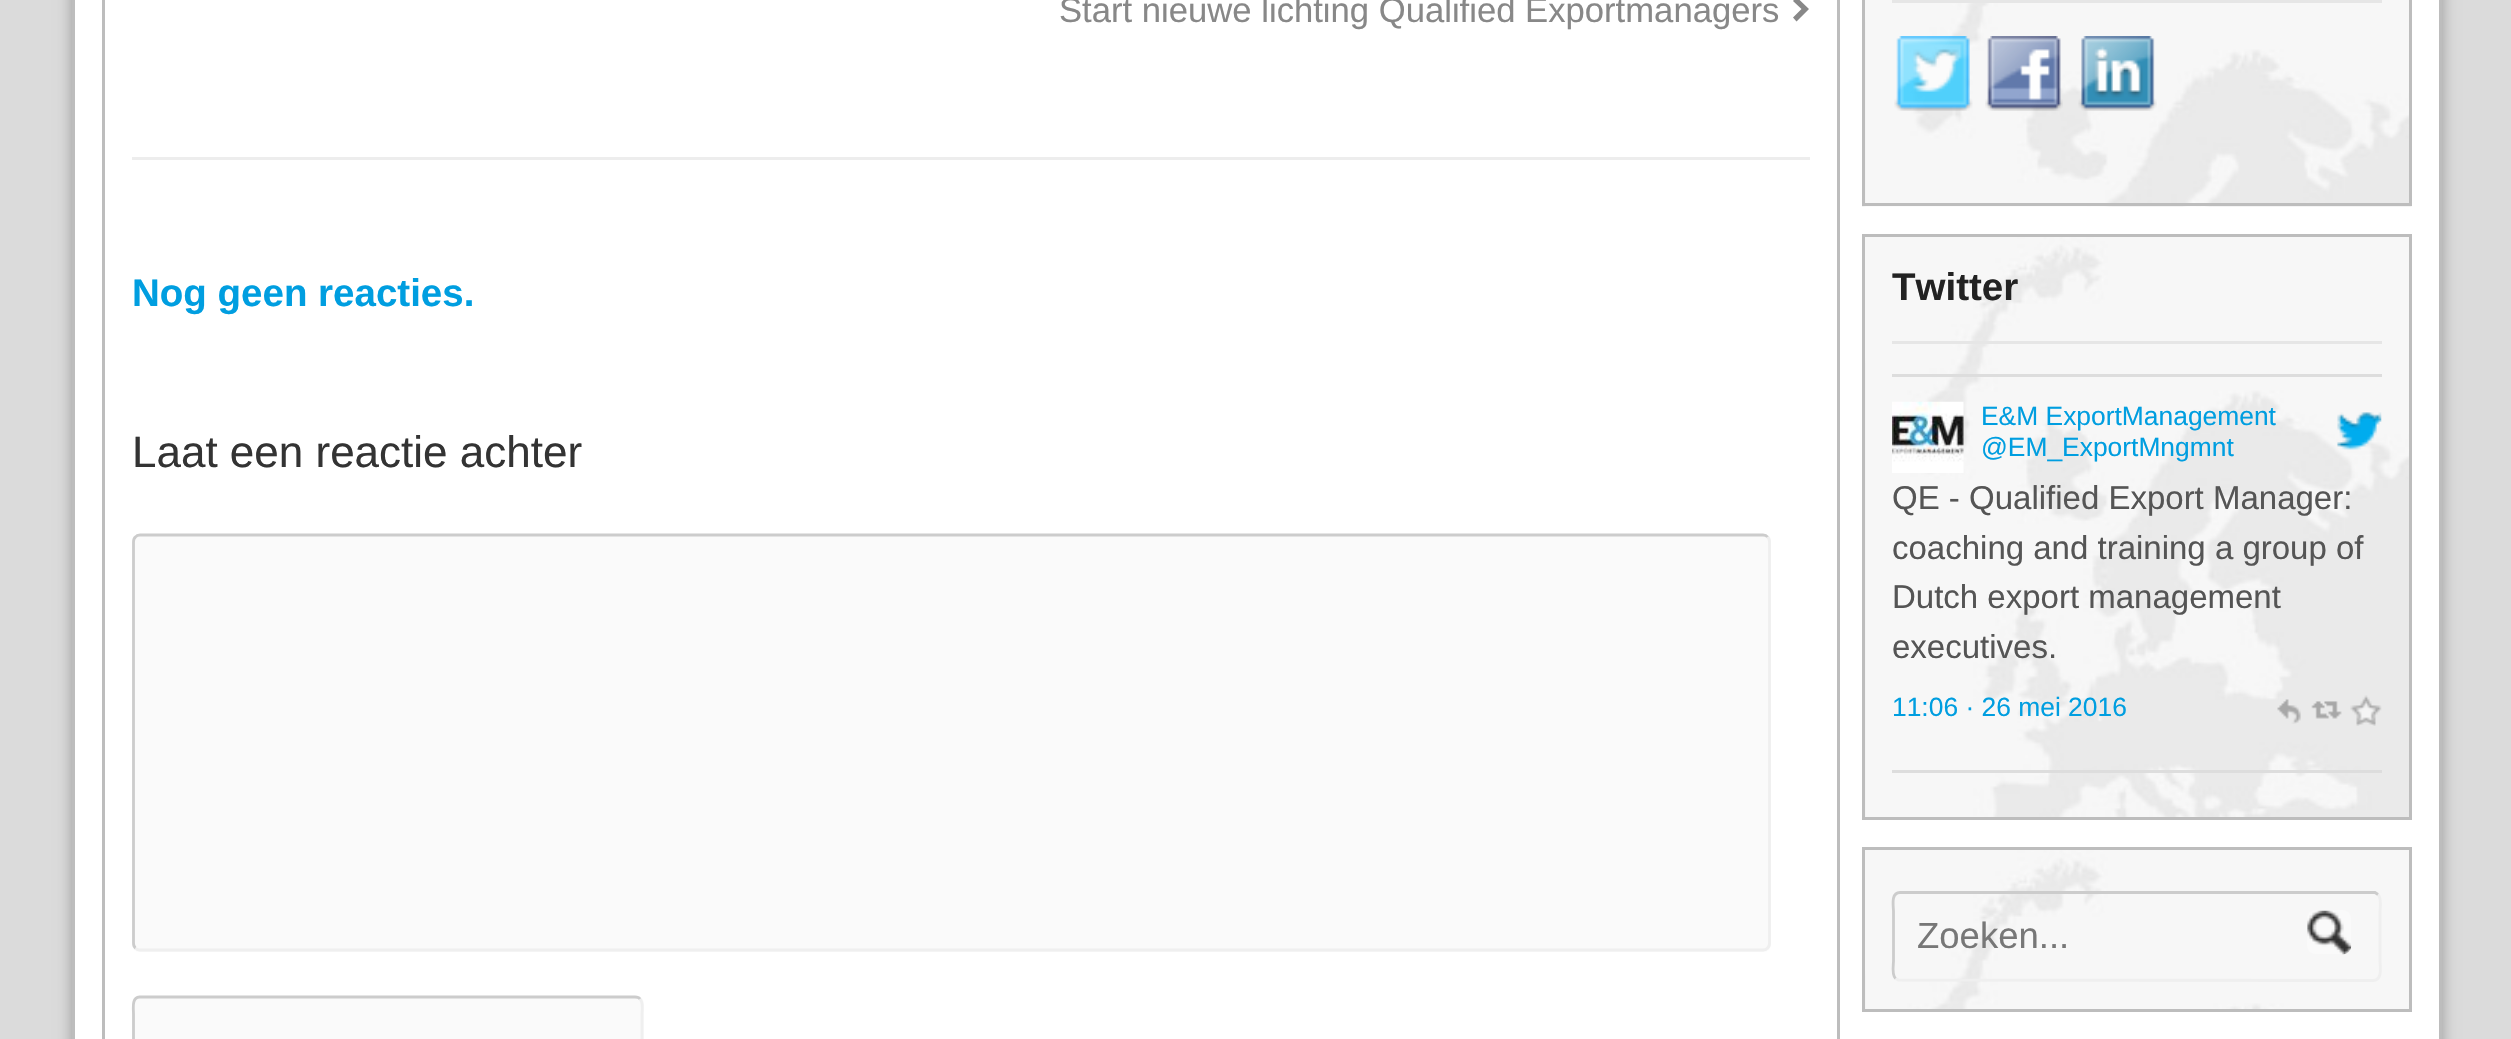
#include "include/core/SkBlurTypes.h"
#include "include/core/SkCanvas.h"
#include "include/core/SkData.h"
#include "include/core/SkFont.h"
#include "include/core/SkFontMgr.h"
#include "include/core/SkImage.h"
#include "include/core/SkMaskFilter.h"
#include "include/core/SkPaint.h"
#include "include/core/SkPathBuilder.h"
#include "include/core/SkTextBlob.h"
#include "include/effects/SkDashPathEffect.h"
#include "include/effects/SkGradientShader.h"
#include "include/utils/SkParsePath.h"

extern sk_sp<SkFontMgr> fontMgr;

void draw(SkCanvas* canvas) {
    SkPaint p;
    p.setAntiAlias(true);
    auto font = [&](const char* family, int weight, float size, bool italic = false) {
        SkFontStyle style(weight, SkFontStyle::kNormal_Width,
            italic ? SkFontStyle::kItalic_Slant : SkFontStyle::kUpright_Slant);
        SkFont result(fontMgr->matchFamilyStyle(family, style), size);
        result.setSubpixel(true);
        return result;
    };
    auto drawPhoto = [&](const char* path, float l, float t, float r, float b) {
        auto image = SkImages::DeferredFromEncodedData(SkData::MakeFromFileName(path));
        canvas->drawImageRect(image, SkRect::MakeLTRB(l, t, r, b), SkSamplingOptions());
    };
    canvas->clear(0xFFDBDBDB);
    p.setColor(0x4D000000);
    p.setMaskFilter(SkMaskFilter::MakeBlur(kNormal_SkBlurStyle, 7));
    canvas->drawRect(SkRect::MakeLTRB(72, -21, 2442, 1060), p);
    p.setMaskFilter(nullptr);
    {
        const struct { float l, t, r, b; SkColor color; } items[] = {
            {75, 0, 2439, 1039, 0xFFFFFFFF},
            {2439, 0, 2442, 1039, 0xFFBDBDBD},
            {72, 0, 75, 1039, 0xFFBDBDBD},
        };
        for (auto [l, t, r, b, color] : items) {
            p.setColor(color);
            canvas->drawRect(SkRect::MakeLTRB(l, t, r, b), p);
        }
    }
    p.setStyle(SkPaint::kStroke_Style);
    p.setStrokeWidth(3);
    canvas->drawRect(SkRect::MakeLTRB(103.5f, -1.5f, 1838.5f, 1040.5f), p);
    auto font1 = font("Liberation Sans", 400, 34.65f);
    p.setStyle(SkPaint::kFill_Style);
    p.setColor(0xFF888888);
    canvas->drawString("Start nieuwe lichting Qualified Exportmanagers", 1059, 22, font1, p);
    canvas->drawPath(SkPathBuilder().moveTo(1796.5f, -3).lineTo(1809, 9).lineTo(1796.5f, 21.5f).lineTo(1793, 17.5f).lineTo(1801.5f, 9).lineTo(1793, 1).close().detach(), p);
    p.setColor(0xFFEDEDED);
    canvas->drawRect(SkRect::MakeLTRB(132, 157, 1810, 160), p);
    auto font2 = font("Liberation Sans", 700, 38.5f);
    p.setColor(0xFF009EE0);
    canvas->drawString("Nog geen reacties.", 132, 306, font2, p);
    auto font3 = font("Liberation Sans", 400, 44);
    p.setColor(0xFF333333);
    canvas->drawString("Laat een reactie achter", 132, 467, font3, p);
    p.setColor(0xFFFAFAFA);
    canvas->drawRoundRect(SkRect::MakeLTRB(132, 534, 1771, 952), 8, 8, p);
    p.setStyle(SkPaint::kStroke_Style);
    p.setStrokeWidth(2.8f);
    p.setColor(0xFFEFEFEF);
    canvas->drawPath(SkPathBuilder().moveTo(1767.5f, 537).cubicTo(1769, 538, 1769.5f, 540, 1769.5f, 542).lineTo(1769.5f, 943).cubicTo(1769.5f, 945, 1769, 947, 1767.5f, 948).cubicTo(1766.5f, 949.5f, 1764.5f, 950, 1763, 950).lineTo(140, 950).cubicTo(138.5f, 950, 136.5f, 949.5f, 135.5f, 948).detach(), p);
    p.setColor(0xFFCCCCCC);
    canvas->drawPath(SkPathBuilder().moveTo(135.5f, 948).cubicTo(134, 947, 133.5f, 945, 133.5f, 943).lineTo(133.5f, 542).cubicTo(133.5f, 540, 134, 538, 135.5f, 537).cubicTo(136.5f, 535.5f, 138.5f, 535, 140, 535).lineTo(1763, 535).cubicTo(1764.5f, 535, 1766.5f, 535.5f, 1767.5f, 537).detach(), p);
    p.setStyle(SkPaint::kFill_Style);
    p.setColor(0xFFFAFAFA);
    canvas->drawRoundRect(SkRect::MakeLTRB(132, 996, 644, 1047), 8, 8, p);
    p.setStyle(SkPaint::kStroke_Style);
    p.setColor(0xFFEFEFEF);
    canvas->drawPath(SkPathBuilder().moveTo(640, 999).cubicTo(643.5f, 1002.5f, 642, 1010, 642, 1014).lineTo(642, 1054).cubicTo(642, 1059.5f, 644, 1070.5f, 636, 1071).lineTo(140, 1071).cubicTo(138.5f, 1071, 136.5f, 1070.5f, 135.5f, 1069).detach(), p);
    p.setColor(0xFFCCCCCC);
    canvas->drawPath(SkPathBuilder().moveTo(135.5f, 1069).cubicTo(132, 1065.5f, 133.5f, 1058, 133.5f, 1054).lineTo(133.5f, 1014).cubicTo(133.5f, 1008.5f, 131.5f, 997.5f, 139.5f, 997).lineTo(635, 997).cubicTo(637, 997, 639, 997.5f, 640, 999).detach(), p);
    drawPhoto("media/1.png", 1862, 0, 2412, 207);
    p.setStrokeWidth(3);
    p.setColor(0xFFBDBDBD);
    canvas->drawRect(SkRect::MakeLTRB(1863.5f, -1.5f, 2410.5f, 204.5f), p);
    p.setStyle(SkPaint::kFill_Style);
    p.setColor(0xFFE6E6E6);
    canvas->drawRect(SkRect::MakeLTRB(1892, 0, 2382, 3), p);
    drawPhoto("media/2.png", 1894, 36, 1973, 111);
    drawPhoto("media/3.png", 1985, 36, 2063, 111);
    drawPhoto("media/4.png", 2078, 36, 2157, 111);
    drawPhoto("media/5.png", 1865, 237, 2409, 817);
    p.setStyle(SkPaint::kStroke_Style);
    p.setColor(0xFFBDBDBD);
    canvas->drawRect(SkRect::MakeLTRB(1863.5f, 235.5f, 2410.5f, 818.5f), p);
    p.setStyle(SkPaint::kFill_Style);
    p.setColor(0xFFE6E6E6);
    canvas->drawRect(SkRect::MakeLTRB(1892, 341, 2382, 344), p);
    p.setColor(0xFF222222);
    canvas->drawString("Twitter", 1892, 300, font2, p);
    p.setColor(0xFFDDDDDD);
    canvas->drawRect(SkRect::MakeLTRB(1892, 374, 2382, 377), p);
    canvas->drawRect(SkRect::MakeLTRB(1892, 770, 2382, 773), p);
    drawPhoto("media/6.png", 1892, 401, 1964, 473);
    auto font4 = font("Liberation Sans", 400, 26.4f);
    p.setColor(0xFF009EE0);
    canvas->drawString("E&M ExportManagement", 1981, 425, font4, p);
    drawPhoto("media/7.png", 2337, 412, 2382, 450);
    canvas->drawString("@EM_ExportMngmnt", 1981, 456, font4, p);
    auto font5 = font("Liberation Sans", 400, 33);
    p.setColor(0xFF555555);
    {
        const struct { const char* s; float x, y; } items[] = {
            {"QE - Qualified Export Manager:", 1892, 509},
            {"coaching and training a group of", 1892, 559},
            {"Dutch export management", 1892, 608},
            {"executives.", 1892, 658},
        };
        for (auto [s, x, y] : items) {
            canvas->drawString(s, x, y, font5, p);
        }
    }
    p.setColor(0xFF009EE0);
    canvas->drawString("11:06 · 26 mei 2016", 1892, 716, font4, p);
    drawPhoto("media/8.png", 2277, 699, 2301, 724);
    drawPhoto("media/9.png", 2311, 701, 2342, 719);
    drawPhoto("media/10.png", 2350, 695, 2382, 726);
    drawPhoto("media/11.png", 1865, 850, 2409, 1009);
    p.setStyle(SkPaint::kStroke_Style);
    p.setColor(0xFFBDBDBD);
    canvas->drawRect(SkRect::MakeLTRB(1863.5f, 848.5f, 2410.5f, 1010.5f), p);
    p.setStrokeWidth(2.8f);
    p.setColor(0xFFEFEFEF);
    canvas->drawPath(SkPathBuilder().moveTo(2378, 894.5f).cubicTo(2382, 898.5f, 2380, 908.5f, 2380, 911.5f).lineTo(2380, 961).cubicTo(2380, 966, 2383, 980.5f, 2373, 980.5f).lineTo(1898.5f, 980).lineTo(1895.5f, 978.5f).detach(), p);
    p.setColor(0xFFCCCCCC);
    canvas->drawPath(SkPathBuilder().moveTo(1895.5f, 978.5f).cubicTo(1891.5f, 974.5f, 1893.5f, 964.5f, 1893.5f, 961).lineTo(1893.5f, 911.5f).cubicTo(1893.5f, 906.5f, 1890.5f, 892.5f, 1900, 892.5f).lineTo(2375, 892.5f).lineTo(2378, 894.5f).detach(), p);
    auto font6 = font("Liberation Sans", 400, 36.5f);
    p.setStyle(SkPaint::kFill_Style);
    p.setColor(0xFF777777);
    canvas->drawString("Zoeken...", 1917, 948, font6, p);
    p.setColor(0xFFFAFAFA);
    canvas->drawRoundRect(SkRect::MakeLTRB(2307, 910, 2351, 954), 8, 8, p);
    drawPhoto("media/12.png", 2307, 910, 2352, 955);
}
